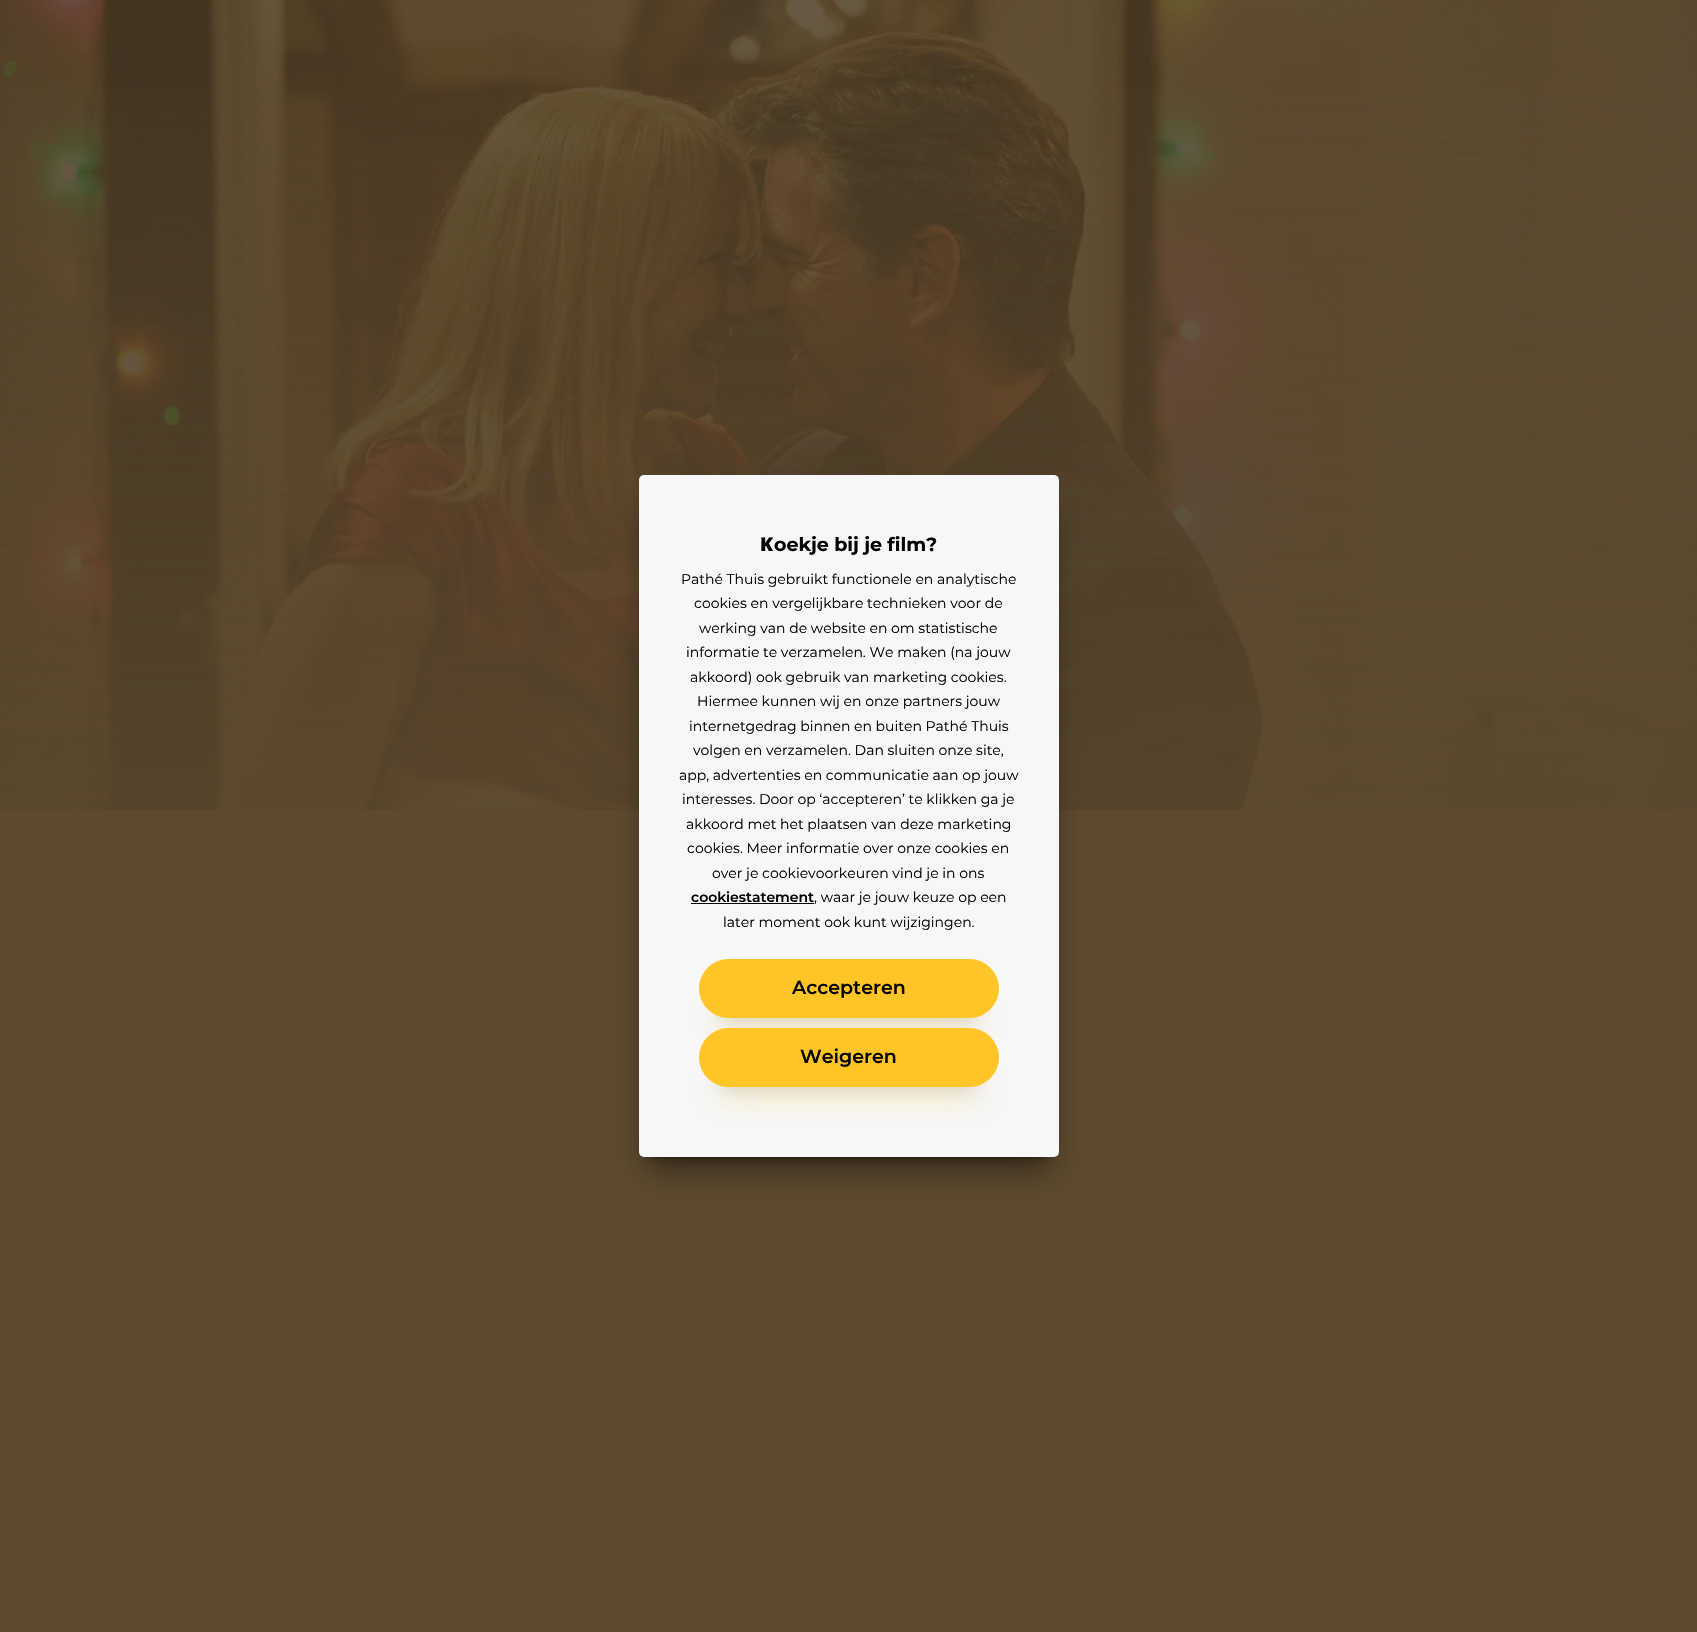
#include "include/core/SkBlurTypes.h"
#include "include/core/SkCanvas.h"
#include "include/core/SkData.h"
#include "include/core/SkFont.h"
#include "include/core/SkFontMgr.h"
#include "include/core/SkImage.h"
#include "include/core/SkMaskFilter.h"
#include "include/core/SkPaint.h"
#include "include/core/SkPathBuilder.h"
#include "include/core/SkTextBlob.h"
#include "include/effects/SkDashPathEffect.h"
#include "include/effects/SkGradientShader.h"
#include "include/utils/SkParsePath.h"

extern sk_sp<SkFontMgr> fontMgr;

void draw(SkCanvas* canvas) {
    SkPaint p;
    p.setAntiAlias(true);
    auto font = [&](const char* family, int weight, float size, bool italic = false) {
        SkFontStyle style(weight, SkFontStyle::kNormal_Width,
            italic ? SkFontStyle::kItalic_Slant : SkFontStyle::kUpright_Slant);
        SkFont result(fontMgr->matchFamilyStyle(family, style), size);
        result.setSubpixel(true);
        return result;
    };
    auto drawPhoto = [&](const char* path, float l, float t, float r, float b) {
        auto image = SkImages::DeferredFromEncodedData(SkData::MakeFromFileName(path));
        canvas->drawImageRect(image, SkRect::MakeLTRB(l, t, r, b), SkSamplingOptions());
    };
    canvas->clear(0xFF5C492E);
    drawPhoto("media/1.png", 0, 0, 1697, 810);
    {
        const SkColor colors[] = {0x005C492E, 0xBF5C492E};
        const float stops[] = {0, 1};
        const SkPoint ends[] = {{849, 0}, {849, 820}};
        p.setShader(SkGradientShader::MakeLinear(ends, colors, stops, 2, SkTileMode::kClamp));
        p.setAlpha(255);
    }
    canvas->drawRect(SkRect::MakeLTRB(0, 89, 1697, 810), p);
    p.setShader(nullptr);
    p.setColor(0x80000000);
    p.setMaskFilter(SkMaskFilter::MakeBlur(kNormal_SkBlurStyle, 15));
    canvas->drawRect(SkRect::MakeLTRB(649, 505, 1049, 1167), p);
    p.setMaskFilter(nullptr);
    p.setColor(0xB3000000);
    p.setMaskFilter(SkMaskFilter::MakeBlur(kNormal_SkBlurStyle, 5));
    canvas->drawRect(SkRect::MakeLTRB(649, 493, 1049, 1155), p);
    p.setMaskFilter(nullptr);
    p.setColor(0xFFF7F7F7);
    canvas->drawRoundRect(SkRect::MakeLTRB(639, 475, 1059, 1157), 5, 5, p);
    auto font1 = font("Noto Sans", 900, 19);
    p.setColor(0xFF000000);
    canvas->drawString("K", 760, 551, font1, p);
    auto font2 = font("Montserrat", 700, 19);
    canvas->drawString("oekje bij je film?", 774, 551, font2, p);
    auto font3 = font("Montserrat", 400, 14);
    {
        const struct { const char* s; float x, y; } items[] = {
            {"Pathé Thuis gebruikt functionele en analytische", 681, 584},
            {"cookies en vergelijkbare technieken voor de", 694, 608},
            {"werking van de website en om statistische", 699, 633},
            {"informatie te verzamelen. We maken (na jouw", 686, 657},
            {"akkoord) ook gebruik van marketing cookies.", 690, 682},
            {"Hiermee kunnen wij en onze partners jouw", 697, 706},
            {"internetgedrag binnen en buiten Pathé Thuis", 689, 731},
            {"volgen en verzamelen. Dan sluiten onze site,", 693, 755},
            {"app, advertenties en communicatie aan op jouw", 679, 780},
            {"interesses. Door op ‘accepteren’ te klikken ga je", 682, 804},
            {"akkoord met het plaatsen van deze marketing", 686, 829},
            {"cookies. Meer informatie over onze cookies en", 687, 853},
            {"over je cookievoorkeuren vind je in ons", 712, 878},
        };
        for (auto [s, x, y] : items) {
            canvas->drawString(s, x, y, font3, p);
        }
    }
    auto font4 = font("Montserrat", 600, 14);
    canvas->drawString("cookiestatement", 691, 902, font4, p);
    canvas->drawRect(SkRect::MakeLTRB(691, 903, 814, 904), p);
    canvas->drawString(", waar je jouw keuze op een", 814, 902, font3, p);
    canvas->drawString("later moment ook kunt wijzigingen.", 723, 927, font3, p);
    p.setColor(0x4DFFC426);
    p.setMaskFilter(SkMaskFilter::MakeBlur(kNormal_SkBlurStyle, 15));
    canvas->drawRoundRect(SkRect::MakeLTRB(719, 1009, 979, 1028), 9.5f, 9.5f, p);
    p.setMaskFilter(nullptr);
    p.setColor(0x1A000000);
    p.setMaskFilter(SkMaskFilter::MakeBlur(kNormal_SkBlurStyle, 7.5f));
    canvas->drawRoundRect(SkRect::MakeLTRB(719, 1004, 979, 1023), 9.5f, 9.5f, p);
    p.setMaskFilter(nullptr);
    p.setColor(0xFFFFC426);
    canvas->drawRoundRect(SkRect::MakeLTRB(699, 959, 999, 1018), 29.5f, 29.5f, p);
    auto font5 = font("Montserrat", 600, 19);
    p.setColor(0xFF000000);
    canvas->drawString("Accepteren", 792, 994, font5, p);
    p.setColor(0x4DFFC426);
    p.setMaskFilter(SkMaskFilter::MakeBlur(kNormal_SkBlurStyle, 15));
    canvas->drawRoundRect(SkRect::MakeLTRB(719, 1078, 979, 1097), 9.5f, 9.5f, p);
    p.setMaskFilter(nullptr);
    p.setColor(0x1A000000);
    p.setMaskFilter(SkMaskFilter::MakeBlur(kNormal_SkBlurStyle, 7.5f));
    canvas->drawRoundRect(SkRect::MakeLTRB(719, 1073, 979, 1092), 9.5f, 9.5f, p);
    p.setMaskFilter(nullptr);
    p.setColor(0xFFFFC426);
    canvas->drawRoundRect(SkRect::MakeLTRB(699, 1028, 999, 1087), 29.5f, 29.5f, p);
    p.setColor(0xFF000000);
    canvas->drawString("Weigeren", 800, 1063, font5, p);
}
